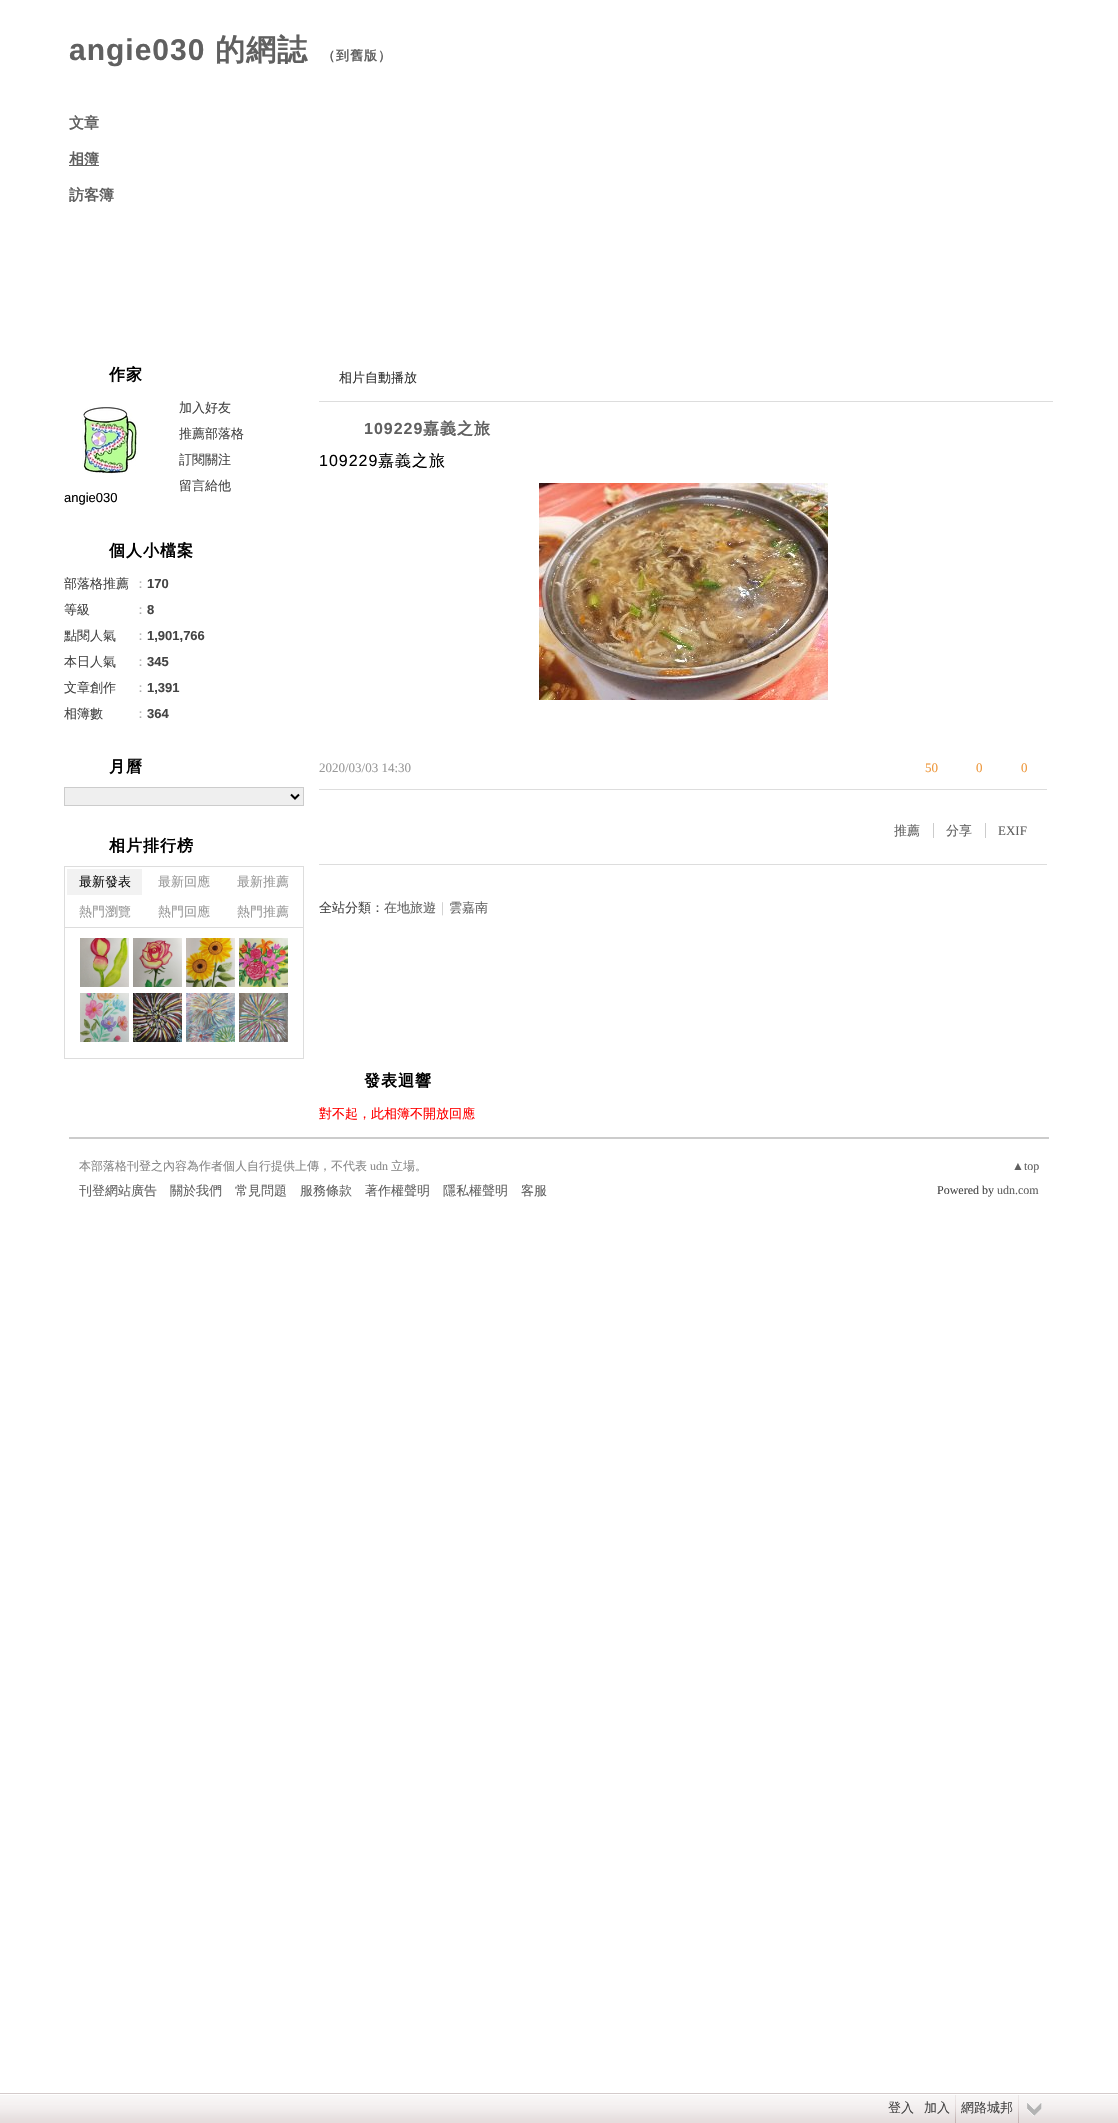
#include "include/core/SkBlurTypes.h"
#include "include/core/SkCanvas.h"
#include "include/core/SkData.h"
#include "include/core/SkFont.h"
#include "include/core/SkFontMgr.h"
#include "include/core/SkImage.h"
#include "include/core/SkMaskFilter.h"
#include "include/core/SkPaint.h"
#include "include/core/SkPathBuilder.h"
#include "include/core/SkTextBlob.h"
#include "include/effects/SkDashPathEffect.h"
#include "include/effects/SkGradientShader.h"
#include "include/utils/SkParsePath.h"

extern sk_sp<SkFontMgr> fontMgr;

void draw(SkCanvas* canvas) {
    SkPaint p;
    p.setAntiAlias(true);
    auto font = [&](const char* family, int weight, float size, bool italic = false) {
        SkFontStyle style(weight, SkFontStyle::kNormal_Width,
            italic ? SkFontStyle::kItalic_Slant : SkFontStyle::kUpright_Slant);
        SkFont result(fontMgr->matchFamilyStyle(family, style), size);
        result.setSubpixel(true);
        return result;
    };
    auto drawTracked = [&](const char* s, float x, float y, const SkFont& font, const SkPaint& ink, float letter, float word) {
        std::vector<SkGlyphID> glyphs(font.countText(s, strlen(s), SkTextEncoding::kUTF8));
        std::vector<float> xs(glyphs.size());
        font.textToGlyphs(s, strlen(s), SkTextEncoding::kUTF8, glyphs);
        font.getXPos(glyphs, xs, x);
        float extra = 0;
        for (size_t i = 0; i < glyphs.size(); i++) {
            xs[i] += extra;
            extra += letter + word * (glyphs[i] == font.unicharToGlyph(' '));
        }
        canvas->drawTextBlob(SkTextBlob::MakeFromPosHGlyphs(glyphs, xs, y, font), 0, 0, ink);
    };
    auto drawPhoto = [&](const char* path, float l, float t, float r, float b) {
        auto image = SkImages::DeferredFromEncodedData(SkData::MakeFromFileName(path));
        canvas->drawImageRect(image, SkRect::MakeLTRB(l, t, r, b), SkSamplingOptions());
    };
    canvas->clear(0xFFFFFFFF);
    auto font1 = font("Liberation Sans", 700, 30);
    p.setColor(0xFF606060);
    drawTracked("angie030", 69, 60, font1, p, 1, 0);
    auto font2 = font("WenQuanYi Zen Hei", 700, 30);
    drawTracked("的網誌", 215, 60, font2, p, 1, 0);
    auto font3 = font("WenQuanYi Zen Hei", 700, 13);
    drawTracked("（到舊版）", 322, 60, font3, p, 1, 0);
    auto font4 = font("WenQuanYi Zen Hei", 700, 15);
    canvas->drawString("文章", 69, 128, font4, p);
    canvas->drawRect(SkRect::MakeLTRB(69, 165, 99, 166), p);
    canvas->drawString("相簿", 69, 164, font4, p);
    canvas->drawString("訪客簿", 69, 200, font4, p);
    auto font5 = font("WenQuanYi Zen Hei", 700, 16);
    p.setColor(0xFF000000);
    drawTracked("作家", 109, 380, font5, p, 1, 0);
    auto font6 = font("WenQuanYi Zen Hei", 500, 13);
    p.setColor(0xFF444444);
    {
        const struct { const char* s; float x, y; } items[] = {
            {"加入好友", 179, 412},
            {"推薦部落格", 179, 438},
            {"訂閱關注", 179, 464},
            {"留言給他", 179, 490},
        };
        for (auto [s, x, y] : items) {
            canvas->drawString(s, x, y, font6, p);
        }
    }
    drawPhoto("media/1.png", 82, 407, 138, 474);
    auto font7 = font("Liberation Sans", 400, 13);
    p.setColor(0xFF000000);
    canvas->drawString("angie030", 64, 502, font7, p);
    drawTracked("個人小檔案", 109, 556, font5, p, 1, 0);
    p.setColor(0xFF444444);
    canvas->drawString("部落格推薦", 64, 588, font6, p);
    p.setColor(0xFFAAAAAA);
    canvas->drawString("：", 134, 588, font6, p);
    auto font8 = font("Liberation Sans", 700, 13);
    p.setColor(0xFF444444);
    canvas->drawString("170", 147, 588, font8, p);
    canvas->drawString("等級", 64, 614, font6, p);
    p.setColor(0xFFAAAAAA);
    canvas->drawString("：", 134, 614, font6, p);
    p.setColor(0xFF444444);
    canvas->drawString("8", 147, 614, font8, p);
    canvas->drawString("點閱人氣", 64, 640, font6, p);
    p.setColor(0xFFAAAAAA);
    canvas->drawString("：", 134, 640, font6, p);
    p.setColor(0xFF444444);
    canvas->drawString("1,901,766", 147, 640, font8, p);
    canvas->drawString("本日人氣", 64, 666, font6, p);
    p.setColor(0xFFAAAAAA);
    canvas->drawString("：", 134, 666, font6, p);
    p.setColor(0xFF444444);
    canvas->drawString("345", 147, 666, font8, p);
    canvas->drawString("文章創作", 64, 692, font6, p);
    p.setColor(0xFFAAAAAA);
    canvas->drawString("：", 134, 692, font6, p);
    p.setColor(0xFF444444);
    canvas->drawString("1,391", 147, 692, font8, p);
    canvas->drawString("相簿數", 64, 718, font6, p);
    p.setColor(0xFFAAAAAA);
    canvas->drawString("：", 134, 718, font6, p);
    p.setColor(0xFF444444);
    canvas->drawString("364", 147, 718, font8, p);
    p.setColor(0xFF000000);
    drawTracked("月曆", 109, 772, font5, p, 1, 0);
    p.setColor(0xFFEFEFEF);
    canvas->drawRect(SkRect::MakeLTRB(64.5f, 787.5f, 303.5f, 805.5f), p);
    p.setStyle(SkPaint::kStroke_Style);
    p.setStrokeWidth(1);
    p.setColor(0xFFCCCCCC);
    canvas->drawRect(SkRect::MakeLTRB(64.5f, 787.5f, 303.5f, 805.5f), p);
    p.setStrokeWidth(2);
    p.setColor(0xFF000000);
    canvas->drawPath(SkPathBuilder().moveTo(291, 794.5f).lineTo(295, 798.5f).lineTo(299, 794.5f).detach(), p);
    p.setStyle(SkPaint::kFill_Style);
    drawTracked("相片排行榜", 109, 851, font5, p, 1, 0);
    p.setStyle(SkPaint::kStroke_Style);
    p.setStrokeWidth(1);
    p.setColor(0xFFDDDDDD);
    canvas->drawRect(SkRect::MakeLTRB(64.5f, 866.5f, 303.5f, 927.5f), p);
    p.setStyle(SkPaint::kFill_Style);
    p.setColor(0xFFF2F2F2);
    canvas->drawRect(SkRect::MakeLTRB(67, 869, 142, 895), p);
    p.setColor(0xFF111111);
    canvas->drawString("最新發表", 79, 886, font6, p);
    p.setColor(0xFF999999);
    {
        const struct { const char* s; float x, y; } items[] = {
            {"最新回應", 158, 886},
            {"最新推薦", 237, 886},
            {"熱門瀏覽", 79, 916},
            {"熱門回應", 158, 916},
            {"熱門推薦", 237, 916},
        };
        for (auto [s, x, y] : items) {
            canvas->drawString(s, x, y, font6, p);
        }
    }
    {
        const struct { float l, t, r, b; SkColor color; } items[] = {
            {303, 928, 304, 1059, 0xFFDDDDDD},
            {64, 1058, 304, 1059, 0xFFDDDDDD},
            {64, 928, 65, 1059, 0xFFDDDDDD},
        };
        for (auto [l, t, r, b, color] : items) {
            p.setColor(color);
            canvas->drawRect(SkRect::MakeLTRB(l, t, r, b), p);
        }
    }
    drawPhoto("media/2.png", 80, 938, 129, 987);
    drawPhoto("media/3.png", 133, 938, 182, 987);
    drawPhoto("media/4.png", 186, 938, 235, 987);
    drawPhoto("media/5.png", 239, 938, 288, 987);
    drawPhoto("media/6.png", 80, 993, 129, 1042);
    drawPhoto("media/7.png", 133, 993, 182, 1042);
    drawPhoto("media/8.png", 186, 993, 235, 1042);
    drawPhoto("media/9.png", 239, 993, 288, 1042);
    canvas->drawRect(SkRect::MakeLTRB(319, 401, 1053, 402), p);
    p.setColor(0xFF333333);
    canvas->drawString("相片自動播放", 339, 382, font6, p);
    auto font9 = font("Liberation Sans", 700, 16);
    p.setColor(0xFF606060);
    drawTracked("109229", 364, 434, font9, p, 1, 0);
    drawTracked("嘉義之旅", 423, 434, font5, p, 1, 0);
    auto font10 = font("Liberation Sans", 400, 16);
    p.setColor(0xFF000000);
    drawTracked("109229", 319, 466, font10, p, 1, 0);
    auto font11 = font("WenQuanYi Zen Hei", 500, 16);
    drawTracked("嘉義之旅", 378, 466, font11, p, 1, 0);
    drawPhoto("media/10.png", 539, 483, 828, 700);
    auto font12 = font("Liberation Serif", 400, 13);
    p.setColor(0xFF999999);
    canvas->drawString("2020/03/03 14:30", 319, 772, font12, p);
    p.setColor(0xFFEE993E);
    {
        const struct { const char* s; float x, y; } items[] = {
            {"50", 925, 772},
            {"0", 976, 772},
            {"0", 1021, 772},
        };
        for (auto [s, x, y] : items) {
            canvas->drawString(s, x, y, font12, p);
        }
    }
    p.setColor(0xFFDDDDDD);
    canvas->drawRect(SkRect::MakeLTRB(319, 789, 1047, 790), p);
    p.setColor(0xFF606060);
    canvas->drawString("推薦", 894, 835, font6, p);
    p.setColor(0xFFCCCCCC);
    canvas->drawRect(SkRect::MakeLTRB(933, 823, 934, 838), p);
    p.setColor(0xFF606060);
    canvas->drawString("分享", 946, 835, font6, p);
    p.setColor(0xFFCCCCCC);
    canvas->drawRect(SkRect::MakeLTRB(985, 823, 986, 838), p);
    p.setColor(0xFF606060);
    canvas->drawString("EXIF", 998, 835, font12, p);
    p.setColor(0xFFDDDDDD);
    canvas->drawRect(SkRect::MakeLTRB(319, 864, 1047, 865), p);
    p.setColor(0xFF444444);
    canvas->drawString("全站分類：", 319, 912, font6, p);
    p.setColor(0xFF606060);
    canvas->drawString("在地旅遊", 384, 912, font6, p);
    p.setColor(0xFFCCCCCC);
    canvas->drawString("｜", 436, 912, font6, p);
    p.setColor(0xFF606060);
    canvas->drawString("雲嘉南", 449, 912, font6, p);
    p.setColor(0xFF000000);
    drawTracked("發表迴響", 364, 1086, font5, p, 1, 0);
    p.setColor(0xFFFF0000);
    canvas->drawString("對不起，此相簿不開放回應", 319, 1118, font6, p);
    p.setColor(0xFFCCCCCC);
    canvas->drawRect(SkRect::MakeLTRB(69, 1137, 1049, 1139), p);
    auto font13 = font("WenQuanYi Zen Hei", 500, 12);
    p.setColor(0xFF888888);
    canvas->drawString("本部落格刊登之內容為作者個人自行提供上傳，不代表", 79, 1170, font13, p);
    auto font14 = font("Liberation Serif", 400, 12);
    canvas->drawString("udn", 370, 1170, font14, p);
    canvas->drawString("立場。", 391, 1170, font13, p);
    p.setColor(0xFF606060);
    canvas->drawString("▲top", 1012, 1170, font14, p);
    {
        const struct { const char* s; float x, y; } items[] = {
            {"刊登網站廣告", 79, 1195},
            {"關於我們", 170, 1195},
            {"常見問題", 235, 1195},
            {"服務條款", 300, 1195},
            {"著作權聲明", 365, 1195},
            {"隱私權聲明", 443, 1195},
            {"客服", 521, 1195},
        };
        for (auto [s, x, y] : items) {
            canvas->drawString(s, x, y, font6, p);
        }
    }
    p.setColor(0xFF444444);
    canvas->drawString("Powered by", 937, 1194, font14, p);
    p.setColor(0xFF606060);
    canvas->drawString("udn.com", 997, 1194, font14, p);
    drawPhoto("media/11.png", 0, 2093, 1118, 2123);
    p.setColor(0xFF444444);
    canvas->drawString("登入", 888, 2112, font6, p);
    canvas->drawString("加入", 924, 2112, font6, p);
    drawPhoto("media/12.png", 955, 2095, 956, 2123);
    canvas->drawString("網路城邦", 961, 2112, font6, p);
    drawPhoto("media/12.png", 1018, 2095, 1019, 2123);
    drawPhoto("media/13.png", 1027, 2102, 1042, 2116);
}
